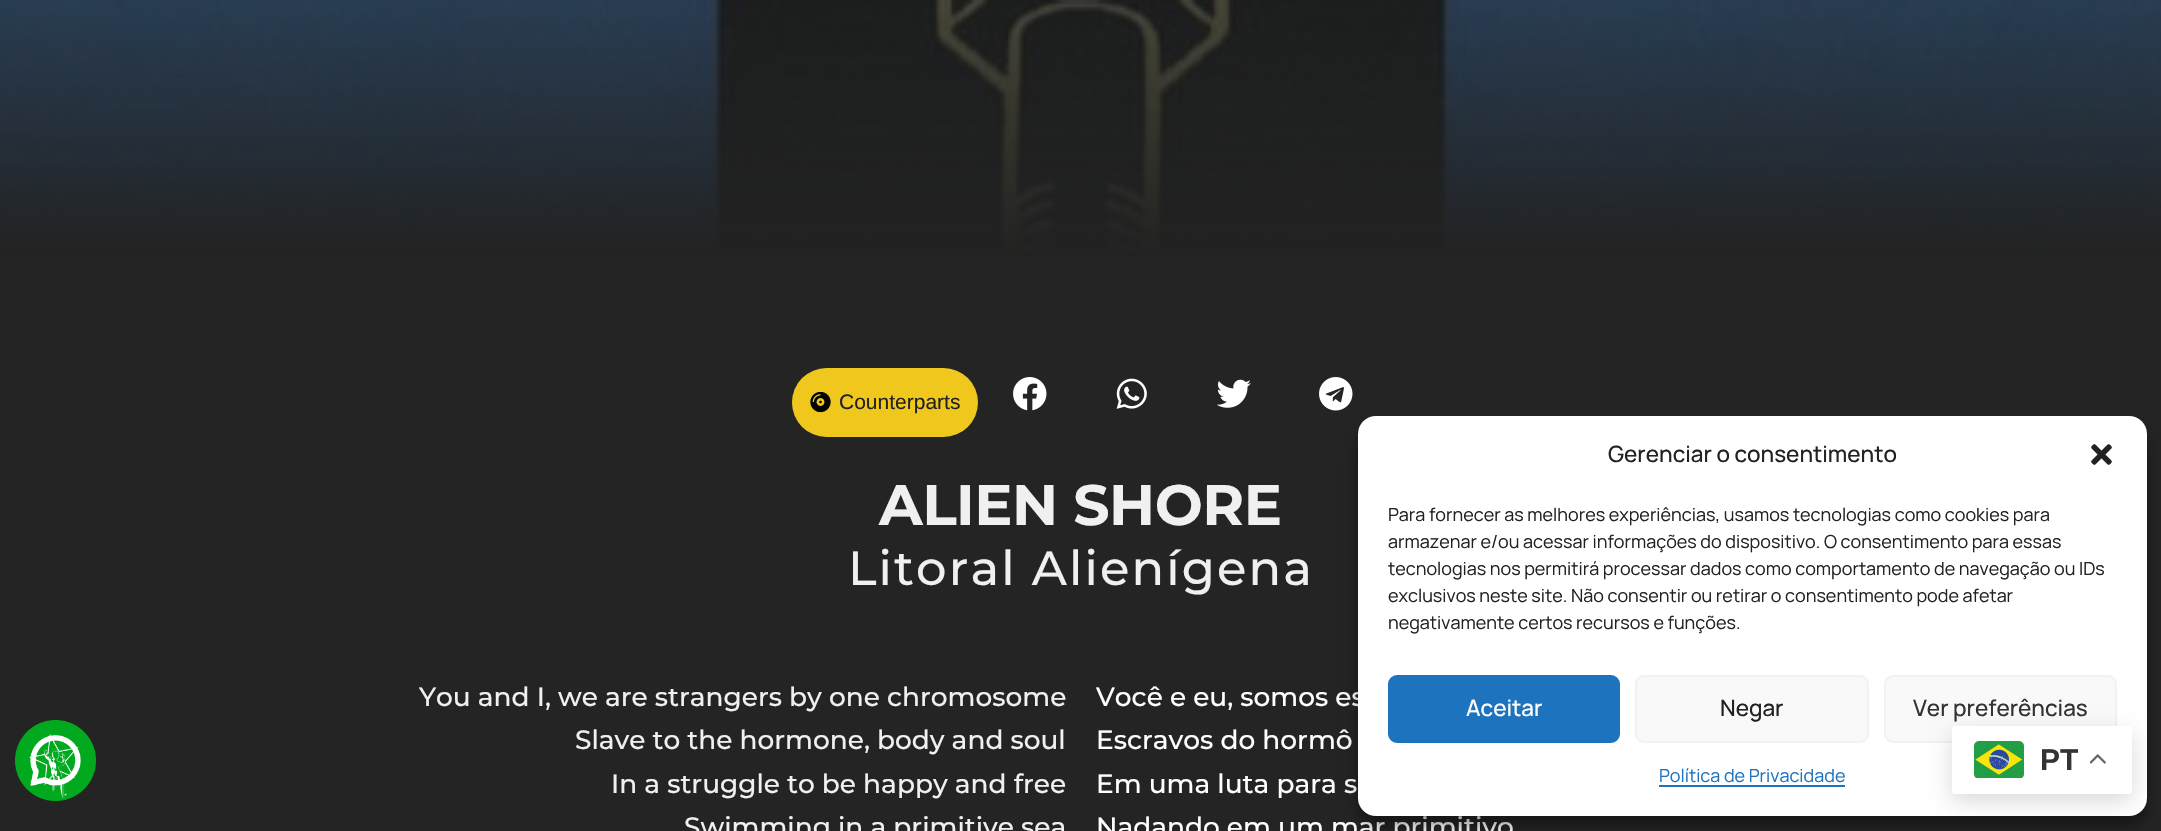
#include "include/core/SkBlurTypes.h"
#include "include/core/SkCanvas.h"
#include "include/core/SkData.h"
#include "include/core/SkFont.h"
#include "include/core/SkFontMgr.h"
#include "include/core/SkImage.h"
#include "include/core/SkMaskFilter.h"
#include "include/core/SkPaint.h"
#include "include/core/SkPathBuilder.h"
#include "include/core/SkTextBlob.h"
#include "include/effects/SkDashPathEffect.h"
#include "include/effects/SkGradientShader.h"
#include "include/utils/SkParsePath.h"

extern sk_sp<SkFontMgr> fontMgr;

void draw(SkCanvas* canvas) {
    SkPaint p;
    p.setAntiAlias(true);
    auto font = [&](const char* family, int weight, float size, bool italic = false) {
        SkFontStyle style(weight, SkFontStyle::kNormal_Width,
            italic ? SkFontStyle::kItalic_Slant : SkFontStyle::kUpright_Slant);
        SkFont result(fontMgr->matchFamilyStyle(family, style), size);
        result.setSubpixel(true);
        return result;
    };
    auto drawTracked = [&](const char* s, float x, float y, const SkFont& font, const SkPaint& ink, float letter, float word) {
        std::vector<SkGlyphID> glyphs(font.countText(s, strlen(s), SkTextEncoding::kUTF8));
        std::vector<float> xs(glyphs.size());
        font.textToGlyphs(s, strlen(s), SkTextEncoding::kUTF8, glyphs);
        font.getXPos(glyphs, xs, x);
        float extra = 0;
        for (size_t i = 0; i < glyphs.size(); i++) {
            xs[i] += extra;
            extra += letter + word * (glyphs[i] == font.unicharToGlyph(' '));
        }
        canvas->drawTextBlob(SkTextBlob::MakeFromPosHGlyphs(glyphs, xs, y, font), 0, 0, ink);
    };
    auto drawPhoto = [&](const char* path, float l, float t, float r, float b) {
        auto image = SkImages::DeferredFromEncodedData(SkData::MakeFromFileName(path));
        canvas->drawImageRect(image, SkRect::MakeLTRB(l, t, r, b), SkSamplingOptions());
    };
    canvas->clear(0xFF242424);
    drawPhoto("media/1.png", 15, 720, 96, 801);
    drawPhoto("media/2.png", 0, 0, 2161, 256);
    p.setColor(0xFFF0C81D);
    canvas->drawRoundRect(SkRect::MakeLTRB(792, 368, 978, 437), 34.5f, 34.5f, p);
    drawPhoto("media/3.png", 810, 392, 831, 413);
    auto font1 = font("Liberation Sans", 400, 21);
    p.setColor(0xFF222222);
    canvas->drawString("Counterparts", 839, 409, font1, p);
    drawPhoto("media/4.png", 1013, 377, 1047, 411);
    drawPhoto("media/5.png", 1116, 378, 1147, 409);
    drawPhoto("media/6.png", 1217, 379, 1251, 408);
    drawPhoto("media/7.png", 1319, 377, 1353, 411);
    auto font2 = font("Montserrat", 700, 57);
    p.setColor(0xFFF0F0F0);
    drawTracked("ALIEN SHORE", 879, 525, font2, p, -0.5f, 0);
    auto font3 = font("Montserrat", 500, 48);
    drawTracked("Litoral Alienígena", 848, 585, font3, p, 2.1f, 0);
    auto font4 = font("Montserrat", 500, 26.4f);
    {
        const struct { const char* s; float x, y; } items[] = {
            {"You and I, we are strangers by one chromosome", 419, 706},
            {"Slave to the hormone, body and soul", 575, 749},
            {"In a struggle to be happy and free", 611, 793},
            {"Swimming in a primitive sea", 684, 836},
        };
        for (auto [s, x, y] : items) {
            canvas->drawString(s, x, y, font4, p);
        }
    }
    p.setColor(0xFFFFFFFF);
    {
        const struct { const char* s; float x, y; } items[] = {
            {"Você e eu, somos es", 1096, 706},
            {"Escravos do hormô", 1096, 749},
            {"Em uma luta para s", 1096, 793},
            {"Nadando em um mar primitivo", 1096, 836},
        };
        for (auto [s, x, y] : items) {
            canvas->drawString(s, x, y, font4, p);
        }
    }
    p.setColor(0x3B000000);
    p.setMaskFilter(SkMaskFilter::MakeBlur(kNormal_SkBlurStyle, 4.5f));
    canvas->drawRoundRect(SkRect::MakeLTRB(1358, 425, 2147, 825), 18, 18, p);
    p.setMaskFilter(nullptr);
    p.setColor(0x30000000);
    p.setMaskFilter(SkMaskFilter::MakeBlur(kNormal_SkBlurStyle, 15));
    canvas->drawRoundRect(SkRect::MakeLTRB(1358, 431, 2147, 831), 18, 18, p);
    p.setMaskFilter(nullptr);
    p.setColor(0xFFFFFFFF);
    canvas->drawRoundRect(SkRect::MakeLTRB(1358, 416, 2147, 816), 18, 18, p);
    auto font5 = font("Manrope", 500, 22.5f);
    p.setColor(0xFF222222);
    canvas->drawString("Gerenciar o consentimento", 1608, 462, font5, p);
    drawPhoto("media/8.png", 2091, 444, 2112, 465);
    auto font6 = font("Manrope", 400, 18);
    {
        const struct { const char* s; float x, y; } items[] = {
            {"Para fornecer as melhores experiências, usamos tecnologias como cookies para", 1388, 521},
            {"armazenar e/ou acessar informações do dispositivo. O consentimento para essas", 1388, 548},
            {"tecnologias nos permitirá processar dados como comportamento de navegação ou IDs", 1388, 575},
            {"exclusivos neste site. Não consentir ou retirar o consentimento pode afetar", 1388, 602},
            {"negativamente certos recursos e funções.", 1388, 629},
        };
        for (auto [s, x, y] : items) {
            canvas->drawString(s, x, y, font6, p);
        }
    }
    p.setColor(0xFF1E73BE);
    canvas->drawRoundRect(SkRect::MakeLTRB(1389, 676, 1619, 742), 8, 8, p);
    p.setStyle(SkPaint::kStroke_Style);
    p.setStrokeWidth(2);
    canvas->drawRoundRect(SkRect::MakeLTRB(1389, 676, 1619, 742), 8, 8, p);
    p.setStyle(SkPaint::kFill_Style);
    p.setColor(0xFFFFFFFF);
    canvas->drawString("Aceitar", 1466, 716, font5, p);
    p.setColor(0xFFF9F9F9);
    canvas->drawRoundRect(SkRect::MakeLTRB(1636, 676, 1868, 742), 8, 8, p);
    p.setStyle(SkPaint::kStroke_Style);
    p.setColor(0xFFF2F2F2);
    canvas->drawRoundRect(SkRect::MakeLTRB(1636, 676, 1868, 742), 8, 8, p);
    p.setStyle(SkPaint::kFill_Style);
    p.setColor(0xFF222222);
    canvas->drawString("Negar", 1720, 716, font5, p);
    p.setColor(0xFFF9F9F9);
    canvas->drawRoundRect(SkRect::MakeLTRB(1885, 676, 2116, 742), 8, 8, p);
    p.setStyle(SkPaint::kStroke_Style);
    p.setColor(0xFFF2F2F2);
    canvas->drawRoundRect(SkRect::MakeLTRB(1885, 676, 2116, 742), 8, 8, p);
    p.setStyle(SkPaint::kFill_Style);
    p.setColor(0xFF333333);
    canvas->drawString("Ver preferências", 1913, 716, font5, p);
    p.setColor(0xFF1E73BE);
    canvas->drawString("Política de Privacidade", 1659, 782, font6, p);
    canvas->drawRect(SkRect::MakeLTRB(1659, 785, 1845, 787), p);
    p.setColor(0x26000000);
    p.setMaskFilter(SkMaskFilter::MakeBlur(kNormal_SkBlurStyle, 11));
    canvas->drawRoundRect(SkRect::MakeLTRB(1952, 734, 2132, 801), 3, 3, p);
    p.setMaskFilter(nullptr);
    p.setColor(0xFFFFFFFF);
    canvas->drawRoundRect(SkRect::MakeLTRB(1952, 726, 2132, 794), 3, 3, p);
    drawPhoto("media/9.png", 1974, 741, 2024, 778);
    auto font7 = font("Liberation Sans", 700, 30);
    p.setColor(0xFF333333);
    canvas->drawString("PT", 2040, 770, font7, p);
    drawPhoto("media/10.png", 2090, 754, 2106, 764);
}
